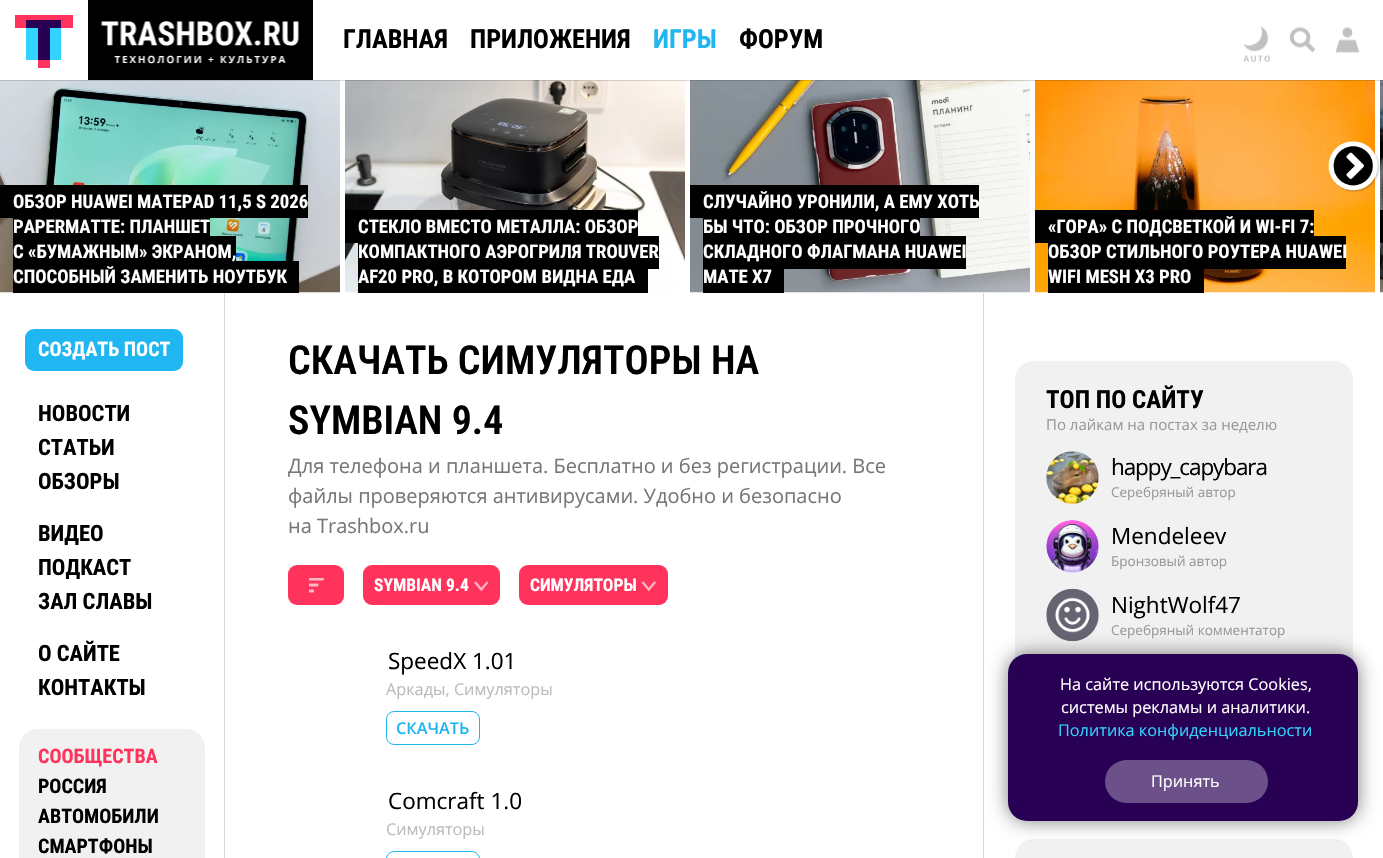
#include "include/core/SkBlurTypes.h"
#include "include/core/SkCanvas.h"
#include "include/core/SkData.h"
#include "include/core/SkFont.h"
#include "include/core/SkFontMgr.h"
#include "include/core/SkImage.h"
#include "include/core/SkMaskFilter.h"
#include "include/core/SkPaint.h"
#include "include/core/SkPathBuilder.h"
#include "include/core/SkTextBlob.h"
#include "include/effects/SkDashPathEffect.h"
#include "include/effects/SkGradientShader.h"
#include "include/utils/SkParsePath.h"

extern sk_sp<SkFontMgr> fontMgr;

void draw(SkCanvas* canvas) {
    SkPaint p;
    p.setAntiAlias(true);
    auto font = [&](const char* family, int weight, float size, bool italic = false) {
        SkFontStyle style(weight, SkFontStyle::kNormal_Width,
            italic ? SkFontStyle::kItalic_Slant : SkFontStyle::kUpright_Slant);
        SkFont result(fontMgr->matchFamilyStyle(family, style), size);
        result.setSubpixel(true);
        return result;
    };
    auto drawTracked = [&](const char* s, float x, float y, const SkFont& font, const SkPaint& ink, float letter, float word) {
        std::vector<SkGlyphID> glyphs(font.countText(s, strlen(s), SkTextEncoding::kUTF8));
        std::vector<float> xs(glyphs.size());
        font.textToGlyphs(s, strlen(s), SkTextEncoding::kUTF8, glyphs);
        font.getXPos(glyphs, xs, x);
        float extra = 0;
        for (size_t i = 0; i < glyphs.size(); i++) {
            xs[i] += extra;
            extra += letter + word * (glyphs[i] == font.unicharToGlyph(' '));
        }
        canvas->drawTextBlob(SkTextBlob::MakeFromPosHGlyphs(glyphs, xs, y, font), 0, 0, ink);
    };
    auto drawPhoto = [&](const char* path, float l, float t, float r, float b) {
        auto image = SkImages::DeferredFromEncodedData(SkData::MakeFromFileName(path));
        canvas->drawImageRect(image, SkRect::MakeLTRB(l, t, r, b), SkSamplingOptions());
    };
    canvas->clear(0xFFFFFFFF);
    {
        const struct { float l, t, r, b; SkColor color; } items[] = {
            {15, 15, 73, 28, 0xFFFF335C},
            {26, 20, 61, 28, 0xFF280054},
            {38, 28, 50, 68, 0xFFFF335C},
            {26, 28, 61, 60, 0xFF33D3FF},
            {38, 28, 50, 60, 0xFF280054},
            {88, 0, 313, 80, 0xFF000000},
        };
        for (auto [l, t, r, b, color] : items) {
            p.setColor(color);
            canvas->drawRect(SkRect::MakeLTRB(l, t, r, b), p);
        }
    }
    drawPhoto("media/1.png", 101, 21, 299, 64);
    auto font1 = font("Roboto Condensed", 700, 26.25f);
    canvas->drawString("ГЛАВНАЯ", 343, 48, font1, p);
    canvas->drawString("ПРИЛОЖЕНИЯ", 470, 48, font1, p);
    p.setColor(0xFF1FB6F2);
    canvas->drawString("ИГРЫ", 653, 48, font1, p);
    p.setColor(0xFF000000);
    canvas->drawString("ФОРУМ", 739, 48, font1, p);
    drawPhoto("media/2.png", 1243, 26, 1270, 63);
    drawPhoto("media/3.png", 1289, 27, 1315, 53);
    drawPhoto("media/4.png", 1335, 27, 1359, 53);
    drawPhoto("media/6.png", 0, 80, 340, 293);
    drawPhoto("media/7.png", 345, 80, 685, 293);
    drawPhoto("media/8.png", 690, 80, 1030, 293);
    drawPhoto("media/9.png", 1035, 80, 1375, 293);
    drawPhoto("media/10.png", 1380, 80, 1383, 293);
    p.setColor(0x26000000);
    canvas->drawRect(SkRect::MakeLTRB(0, 80, 1383, 81), p);
    drawPhoto("media/5.png", 1328, 141, 1380, 192);
    p.setColor(0xFF000000);
    canvas->drawRect(SkRect::MakeLTRB(0, 185, 308, 218), p);
    auto font2 = font("Roboto Condensed", 700, 18.75f);
    p.setColor(0xFFFFFFFF);
    canvas->drawString("ОБЗОР HUAWEI MATEPAD 11,5 S 2026", 13, 208, font2, p);
    p.setColor(0xFF000000);
    canvas->drawRect(SkRect::MakeLTRB(13, 218, 210, 236), p);
    p.setColor(0xFFFFFFFF);
    canvas->drawString("PAPERMATTE: ПЛАНШЕТ", 13, 233, font2, p);
    p.setColor(0xFF000000);
    canvas->drawRect(SkRect::MakeLTRB(13, 236, 236, 261), p);
    canvas->drawRect(SkRect::MakeLTRB(13, 261, 299, 293), p);
    p.setColor(0xFFFFFFFF);
    canvas->drawString("С «БУМАЖНЫМ» ЭКРАНОМ,", 13, 258, font2, p);
    canvas->drawString("СПОСОБНЫЙ ЗАМЕНИТЬ НОУТБУК", 13, 283, font2, p);
    p.setColor(0xFF000000);
    canvas->drawRect(SkRect::MakeLTRB(345, 210, 638, 243), p);
    p.setColor(0xFFFFFFFF);
    canvas->drawString("СТЕКЛО ВМЕСТО МЕТАЛЛА: ОБЗОР", 358, 233, font2, p);
    p.setColor(0xFF000000);
    canvas->drawRect(SkRect::MakeLTRB(358, 236, 659, 269), p);
    p.setColor(0xFFFFFFFF);
    canvas->drawString("КОМПАКТНОГО АЭРОГРИЛЯ TROUVER", 358, 258, font2, p);
    p.setColor(0xFF000000);
    canvas->drawRect(SkRect::MakeLTRB(358, 269, 648, 293), p);
    p.setColor(0xFFFFFFFF);
    canvas->drawString("AF20 PRO, В КОТОРОМ ВИДНА ЕДА", 358, 283, font2, p);
    p.setColor(0xFF000000);
    canvas->drawRect(SkRect::MakeLTRB(690, 185, 979, 218), p);
    p.setColor(0xFFFFFFFF);
    canvas->drawString("СЛУЧАЙНО УРОНИЛИ, А ЕМУ ХОТЬ", 703, 208, font2, p);
    p.setColor(0xFF000000);
    canvas->drawRect(SkRect::MakeLTRB(703, 218, 920, 236), p);
    p.setColor(0xFFFFFFFF);
    canvas->drawString("БЫ ЧТО: ОБЗОР ПРОЧНОГО", 703, 233, font2, p);
    p.setColor(0xFF000000);
    canvas->drawRect(SkRect::MakeLTRB(703, 236, 966, 269), p);
    p.setColor(0xFFFFFFFF);
    canvas->drawString("СКЛАДНОГО ФЛАГМАНА HUAWEI", 703, 258, font2, p);
    p.setColor(0xFF000000);
    canvas->drawRect(SkRect::MakeLTRB(703, 269, 784, 293), p);
    p.setColor(0xFFFFFFFF);
    canvas->drawString("MATE X7", 703, 283, font2, p);
    p.setColor(0xFF000000);
    canvas->drawRect(SkRect::MakeLTRB(1035, 210, 1314, 243), p);
    canvas->drawRect(SkRect::MakeLTRB(1048, 236, 1346, 269), p);
    p.setColor(0xFFFFFFFF);
    canvas->drawString("«ГОРА» С ПОДСВЕТКОЙ И WI-FI 7:", 1048, 233, font2, p);
    canvas->drawString("ОБЗОР СТИЛЬНОГО РОУТЕРА HUAWEI", 1048, 258, font2, p);
    p.setColor(0xFF000000);
    canvas->drawRect(SkRect::MakeLTRB(1048, 269, 1204, 293), p);
    p.setColor(0xFFFFFFFF);
    canvas->drawString("WIFI MESH X3 PRO", 1048, 283, font2, p);
    p.setColor(0xFF000000);
    canvas->drawRect(SkRect::MakeLTRB(1380, 210, 1383, 243), p);
    p.setColor(0xFFD9D9D9);
    canvas->drawRect(SkRect::MakeLTRB(224, 293, 225, 858), p);
    p.setColor(0xFF1FB6F2);
    canvas->drawRoundRect(SkRect::MakeLTRB(25, 329, 183, 371), 9, 9, p);
    auto font3 = font("Roboto Condensed", 700, 20);
    p.setColor(0xFFFFFFFF);
    canvas->drawString("СОЗДАТЬ ПОСТ", 38, 356, font3, p);
    auto font4 = font("Roboto Condensed", 700, 22.5f);
    p.setColor(0xFF000000);
    {
        const struct { const char* s; float x, y; } items[] = {
            {"НОВОСТИ", 38, 421},
            {"СТАТЬИ", 38, 455},
            {"ОБЗОРЫ", 38, 489},
            {"ВИДЕО", 38, 541},
            {"ПОДКАСТ", 38, 575},
            {"ЗАЛ СЛАВЫ", 38, 609},
            {"О САЙТЕ", 38, 661},
            {"КОНТАКТЫ", 38, 695},
        };
        for (auto [s, x, y] : items) {
            canvas->drawString(s, x, y, font4, p);
        }
    }
    p.setColor(0xFFF1F1F1);
    canvas->drawRoundRect(SkRect::MakeLTRB(19, 729, 205, 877), 19, 19, p);
    p.setColor(0xFFFF335C);
    canvas->drawString("СООБЩЕСТВА", 38, 763, font3, p);
    p.setColor(0xFF000000);
    {
        const struct { const char* s; float x, y; } items[] = {
            {"РОССИЯ", 38, 793},
            {"АВТОМОБИЛИ", 38, 823},
            {"СМАРТФОНЫ", 38, 853},
        };
        for (auto [s, x, y] : items) {
            canvas->drawString(s, x, y, font3, p);
        }
    }
    p.setColor(0xFFD9D9D9);
    canvas->drawRect(SkRect::MakeLTRB(983, 293, 984, 858), p);
    auto font5 = font("Roboto Condensed", 600, 40);
    p.setColor(0xFF000000);
    canvas->drawString("СКАЧАТЬ СИМУЛЯТОРЫ НА", 288, 374, font5, p);
    canvas->drawString("SYMBIAN 9.4", 288, 434, font5, p);
    auto font6 = font("Open Sans", 400, 20);
    p.setColor(0xFF777777);
    {
        const struct { const char* s; float x, y; } items[] = {
            {"Для телефона и планшета. Бесплатно и без регистрации. Все", 288, 473},
            {"файлы проверяются антивирусами. Удобно и безопасно", 288, 503},
            {"на Trashbox.ru", 288, 533},
        };
        for (auto [s, x, y] : items) {
            canvas->drawString(s, x, y, font6, p);
        }
    }
    p.setColor(0xFFFF335C);
    canvas->drawRoundRect(SkRect::MakeLTRB(288, 565, 344, 605), 9, 9, p);
    drawPhoto("media/11.png", 309, 578, 324, 593);
    canvas->drawRoundRect(SkRect::MakeLTRB(363, 565, 500, 605), 9, 9, p);
    auto font7 = font("Roboto Condensed", 700, 17.5f);
    p.setColor(0xFFFFFFFF);
    canvas->drawString("SYMBIAN 9.4", 374, 591, font7, p);
    drawPhoto("media/12.png", 474, 581, 489, 592);
    p.setColor(0xFFFF335C);
    canvas->drawRoundRect(SkRect::MakeLTRB(519, 565, 668, 605), 9, 9, p);
    p.setColor(0xFFFFFFFF);
    canvas->drawString("СИМУЛЯТОРЫ", 530, 591, font7, p);
    drawPhoto("media/13.png", 641, 581, 656, 592);
    auto font8 = font("Open Sans", 400, 22.5f);
    p.setColor(0xFF000000);
    canvas->drawString("SpeedX 1.01", 388, 669, font8, p);
    auto font9 = font("Open Sans", 400, 16.25f);
    p.setColor(0xFFBBBBBB);
    canvas->drawString("Аркады, Симуляторы", 386, 695, font9, p);
    p.setStyle(SkPaint::kStroke_Style);
    p.setStrokeWidth(1);
    p.setColor(0xFF1FB6F2);
    canvas->drawRoundRect(SkRect::MakeLTRB(386.5f, 711.5f, 479.5f, 744.5f), 7.5f, 7.5f, p);
    auto font10 = font("Open Sans", 600, 16.25f);
    p.setStyle(SkPaint::kFill_Style);
    canvas->drawString("СКАЧАТЬ", 396, 734, font10, p);
    p.setColor(0xFF000000);
    canvas->drawString("Comcraft 1.0", 388, 809, font8, p);
    p.setColor(0xFFBBBBBB);
    canvas->drawString("Симуляторы", 386, 835, font9, p);
    p.setStyle(SkPaint::kStroke_Style);
    p.setColor(0xFF1FB6F2);
    canvas->drawRoundRect(SkRect::MakeLTRB(386.5f, 851.5f, 479.5f, 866.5f), 7.5f, 7.5f, p);
    p.setStyle(SkPaint::kFill_Style);
    p.setColor(0xFFF1F1F1);
    canvas->drawRoundRect(SkRect::MakeLTRB(1015, 361, 1353, 808), 19, 19, p);
    auto font11 = font("Roboto Condensed", 700, 25);
    p.setColor(0xFF000000);
    canvas->drawString("ТОП ПО САЙТУ", 1046, 408, font11, p);
    auto font12 = font("Open Sans", 400, 15);
    p.setColor(0xFF999999);
    canvas->drawString("По лайкам на постах за неделю", 1046, 430, font12, p);
    drawPhoto("media/14.png", 1046, 451, 1099, 504);
    p.setColor(0xFF000000);
    drawTracked("happy_capybara", 1111, 475, font8, p, -1.1f, 0);
    auto font13 = font("Open Sans", 400, 13.5f);
    p.setColor(0xFF999999);
    canvas->drawString("Серебряный автор", 1111, 497, font13, p);
    drawPhoto("media/15.png", 1046, 520, 1099, 573);
    p.setColor(0xFF000000);
    canvas->drawString("Mendeleev", 1111, 544, font8, p);
    p.setColor(0xFF999999);
    canvas->drawString("Бронзовый автор", 1111, 566, font13, p);
    drawPhoto("media/16.png", 1046, 588, 1099, 642);
    p.setColor(0xFF000000);
    canvas->drawString("NightWolf47", 1111, 613, font8, p);
    p.setColor(0xFF999999);
    canvas->drawString("Серебряный комментатор", 1111, 635, font13, p);
    p.setColor(0xFFF1F1F1);
    canvas->drawRoundRect(SkRect::MakeLTRB(1015, 839, 1353, 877), 19, 19, p);
    p.setColor(0x80000000);
    p.setMaskFilter(SkMaskFilter::MakeBlur(kNormal_SkBlurStyle, 9.5f));
    canvas->drawRoundRect(SkRect::MakeLTRB(1008, 654, 1358, 821), 19, 19, p);
    p.setMaskFilter(nullptr);
    p.setColor(0xFF280054);
    canvas->drawRoundRect(SkRect::MakeLTRB(1008, 654, 1358, 821), 19, 19, p);
    p.setColor(0xFFFFFFFF);
    canvas->drawString("На сайте используются Cookies,", 1060, 690, font9, p);
    canvas->drawString("системы рекламы и аналитики.", 1061, 713, font9, p);
    p.setColor(0xFF33D3FF);
    canvas->drawString("Политика конфиденциальности", 1058, 736, font9, p);
    p.setColor(0xFF6C508A);
    canvas->drawRoundRect(SkRect::MakeLTRB(1105, 760, 1268, 803), 21.5f, 21.5f, p);
    p.setColor(0xFFFFFFFF);
    canvas->drawString("Принять", 1151, 787, font9, p);
}
